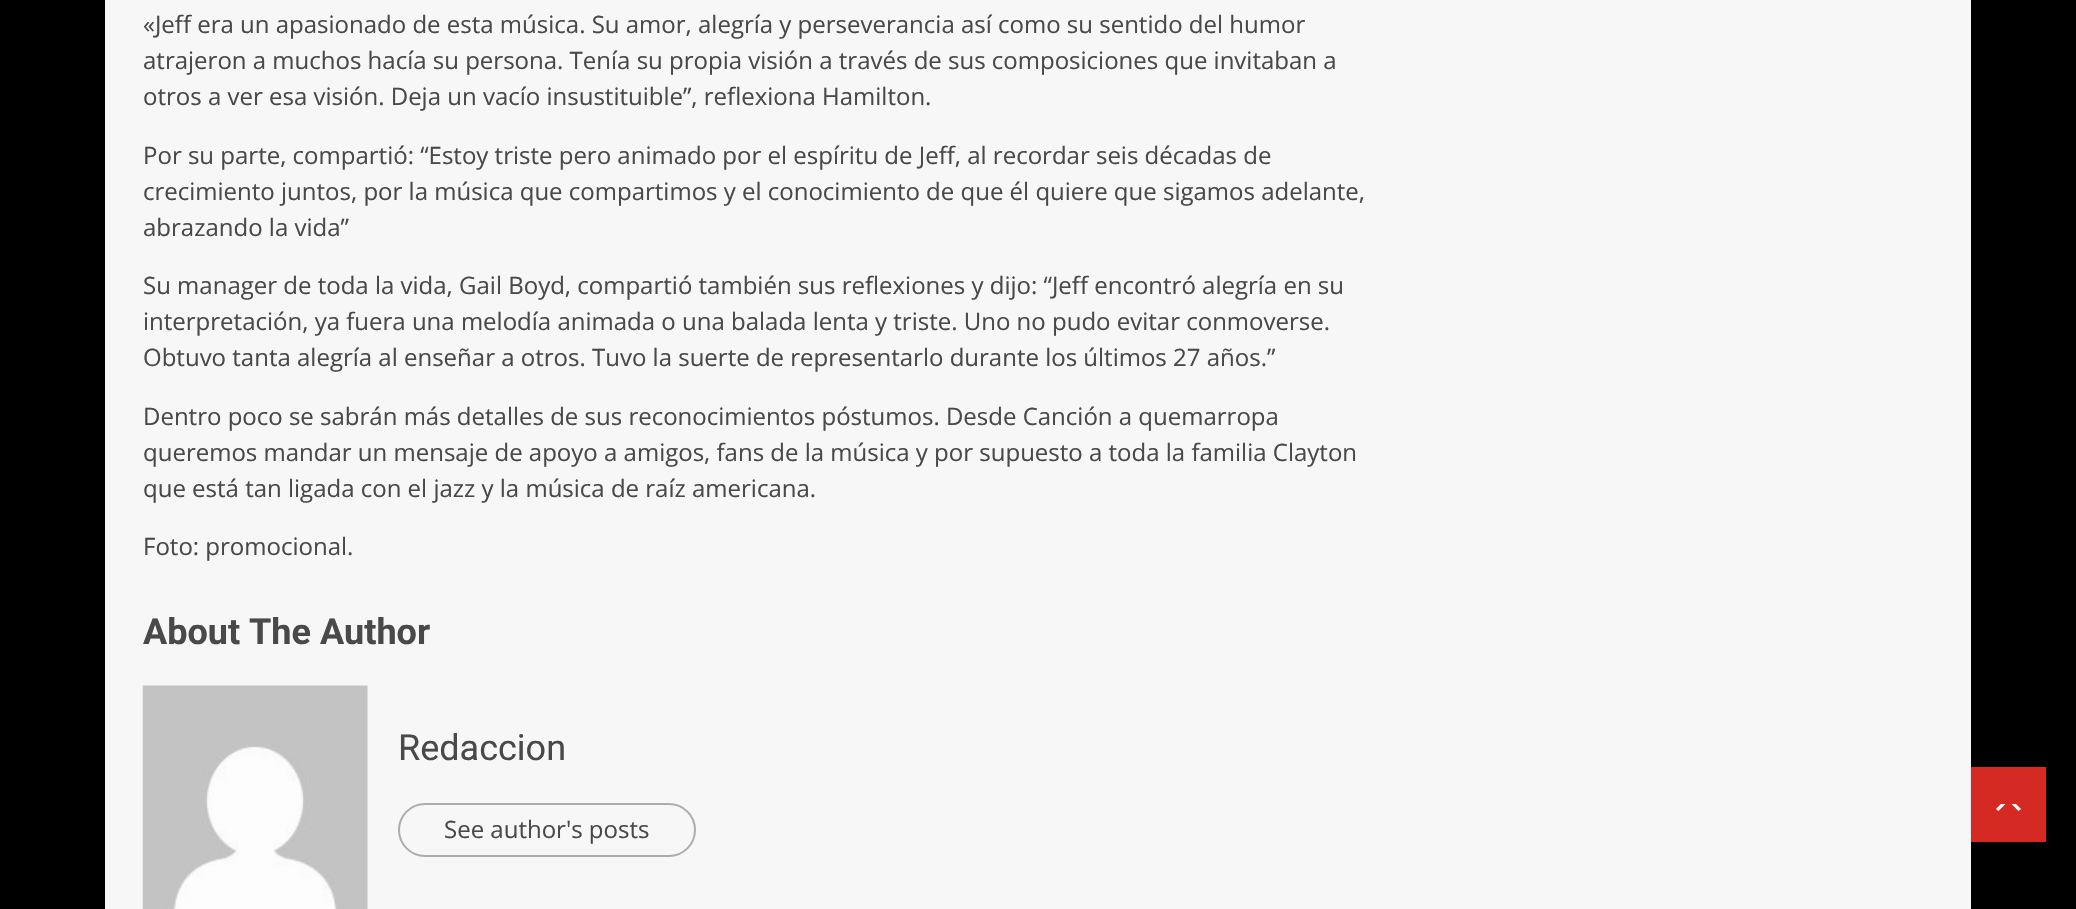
#include "include/core/SkBlurTypes.h"
#include "include/core/SkCanvas.h"
#include "include/core/SkData.h"
#include "include/core/SkFont.h"
#include "include/core/SkFontMgr.h"
#include "include/core/SkImage.h"
#include "include/core/SkMaskFilter.h"
#include "include/core/SkPaint.h"
#include "include/core/SkPathBuilder.h"
#include "include/core/SkTextBlob.h"
#include "include/effects/SkDashPathEffect.h"
#include "include/effects/SkGradientShader.h"
#include "include/utils/SkParsePath.h"

extern sk_sp<SkFontMgr> fontMgr;

void draw(SkCanvas* canvas) {
    SkPaint p;
    p.setAntiAlias(true);
    auto font = [&](const char* family, int weight, float size, bool italic = false) {
        SkFontStyle style(weight, SkFontStyle::kNormal_Width,
            italic ? SkFontStyle::kItalic_Slant : SkFontStyle::kUpright_Slant);
        SkFont result(fontMgr->matchFamilyStyle(family, style), size);
        result.setSubpixel(true);
        return result;
    };
    auto drawPhoto = [&](const char* path, float l, float t, float r, float b) {
        auto image = SkImages::DeferredFromEncodedData(SkData::MakeFromFileName(path));
        canvas->drawImageRect(image, SkRect::MakeLTRB(l, t, r, b), SkSamplingOptions());
    };
    canvas->clear(0xFF000000);
    p.setColor(0xFFF7F7F7);
    canvas->drawRect(SkRect::MakeLTRB(105, 0, 1971, 909), p);
    auto font1 = font("Open Sans", 400, 24);
    p.setColor(0xFF494949);
    {
        const struct { const char* s; float x, y; } items[] = {
            {"«Jeff era un apasionado de esta música. Su amor, alegría y perseverancia así como su sentido del humor", 143, 33},
            {"atrajeron a muchos hacía su persona. Tenía su propia visión a través de sus composiciones que invitaban a", 143, 69},
            {"otros a ver esa visión. Deja un vacío insustituible”, reflexiona Hamilton.", 143, 105},
            {"Por su parte, compartió: “Estoy triste pero animado por el espíritu de Jeff, al recordar seis décadas de", 143, 164},
            {"crecimiento juntos, por la música que compartimos y el conocimiento de que él quiere que sigamos adelante,", 143, 200},
            {"abrazando la vida”", 143, 236},
            {"Su manager de toda la vida, Gail Boyd, compartió también sus reflexiones y dijo: “Jeff encontró alegría en su", 143, 294},
            {"interpretación, ya fuera una melodía animada o una balada lenta y triste. Uno no pudo evitar conmoverse.", 143, 330},
            {"Obtuvo tanta alegría al enseñar a otros. Tuvo la suerte de representarlo durante los últimos 27 años.”", 143, 366},
            {"Dentro poco se sabrán más detalles de sus reconocimientos póstumos. Desde Canción a quemarropa", 143, 425},
            {"queremos mandar un mensaje de apoyo a amigos, fans de la música y por supuesto a toda la familia Clayton", 143, 461},
            {"que está tan ligada con el jazz y la música de raíz americana.", 143, 497},
            {"Foto: promocional.", 143, 555},
        };
        for (auto [s, x, y] : items) {
            canvas->drawString(s, x, y, font1, p);
        }
    }
    auto font2 = font("Roboto", 700, 36);
    canvas->drawString("About The Author", 143, 644, font2, p);
    drawPhoto("media/1.png", 142, 685, 368, 909);
    auto font3 = font("Roboto", 400, 36);
    canvas->drawString("Redaccion", 398, 760, font3, p);
    p.setStyle(SkPaint::kStroke_Style);
    p.setStrokeWidth(2);
    p.setColor(0xFFACACAC);
    canvas->drawRoundRect(SkRect::MakeLTRB(399, 804, 695, 856), 26, 26, p);
    p.setStyle(SkPaint::kFill_Style);
    p.setColor(0xFF494949);
    canvas->drawString("See author's posts", 444, 838, font1, p);
    p.setColor(0xFFD52924);
    canvas->drawRect(SkRect::MakeLTRB(1971, 767, 2046, 842), p);
    p.setColor(0xFFFCFCFC);
    canvas->drawPath(SkPathBuilder().moveTo(2001, 811.5f).lineTo(2016, 811.5f).cubicTo(2018, 811.5f, 2020, 810.5f, 2021, 809).lineTo(2016, 804).lineTo(2001, 804).lineTo(1996, 809).cubicTo(1997, 810.5f, 1999, 811.5f, 2001, 811.5f).close().detach(), p);
    p.setColor(0xFFD52924);
    canvas->drawPath(SkPathBuilder().moveTo(2023.5f, 816).lineTo(1993.5f, 816).lineTo(2008.5f, 801).close().detach(), p);
}
